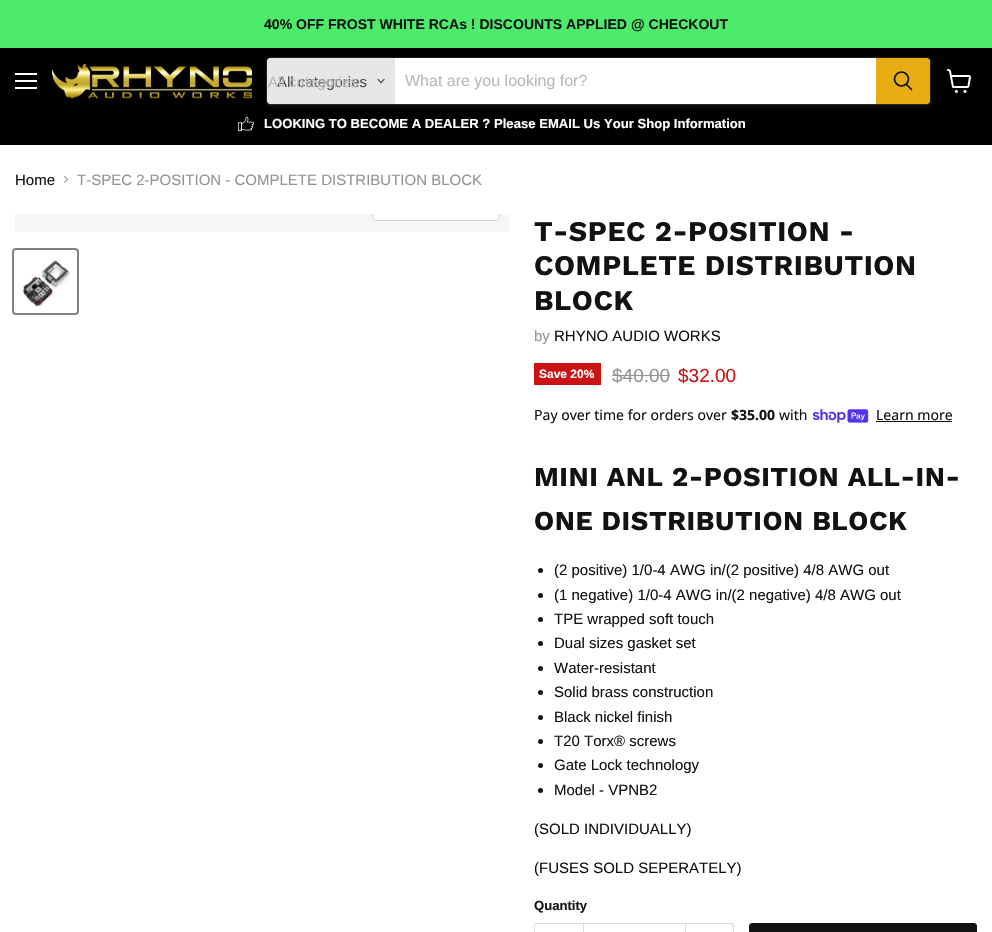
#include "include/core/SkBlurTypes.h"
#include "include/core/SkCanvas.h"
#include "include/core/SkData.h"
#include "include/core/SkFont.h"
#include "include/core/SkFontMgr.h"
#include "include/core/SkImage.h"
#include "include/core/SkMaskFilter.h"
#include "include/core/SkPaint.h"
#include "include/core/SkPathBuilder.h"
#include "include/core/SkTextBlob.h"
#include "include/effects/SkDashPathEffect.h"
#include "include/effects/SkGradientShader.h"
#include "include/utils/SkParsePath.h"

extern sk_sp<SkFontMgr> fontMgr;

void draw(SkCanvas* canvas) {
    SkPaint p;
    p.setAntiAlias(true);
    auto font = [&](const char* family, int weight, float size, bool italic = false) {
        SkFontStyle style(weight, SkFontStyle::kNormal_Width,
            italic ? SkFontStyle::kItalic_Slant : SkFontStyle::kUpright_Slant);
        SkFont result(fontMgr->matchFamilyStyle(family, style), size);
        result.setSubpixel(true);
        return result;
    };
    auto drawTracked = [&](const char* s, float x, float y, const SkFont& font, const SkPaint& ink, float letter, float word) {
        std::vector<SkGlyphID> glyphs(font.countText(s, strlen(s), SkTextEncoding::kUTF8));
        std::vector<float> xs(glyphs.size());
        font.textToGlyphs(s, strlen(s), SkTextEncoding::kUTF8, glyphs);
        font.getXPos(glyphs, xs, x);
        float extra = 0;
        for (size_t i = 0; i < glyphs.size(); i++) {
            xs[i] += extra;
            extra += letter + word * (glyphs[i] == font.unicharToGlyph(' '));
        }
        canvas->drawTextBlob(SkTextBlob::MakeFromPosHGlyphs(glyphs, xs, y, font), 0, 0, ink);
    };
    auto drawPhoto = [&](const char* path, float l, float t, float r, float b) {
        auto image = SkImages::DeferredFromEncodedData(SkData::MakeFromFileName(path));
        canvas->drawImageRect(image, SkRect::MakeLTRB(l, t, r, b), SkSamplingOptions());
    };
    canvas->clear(0xFFFFFFFF);
    p.setColor(0xFF4DEB6C);
    canvas->drawRect(SkRect::MakeLTRB(0, 0, 992, 48), p);
    auto font1 = font("Liberation Sans", 700, 14.05f);
    p.setColor(0xFF121212);
    canvas->drawString("40% OFF FROST WHITE RCAs ! DISCOUNTS APPLIED @ CHECKOUT", 264, 29, font1, p);
    {
        const struct { float l, t, r, b; SkColor color; } items[] = {
            {0, 48, 992, 145, 0xFF000000},
            {15, 73, 37, 75, 0xFFFFFFFF},
            {15, 80, 37, 82, 0xFFFFFFFF},
            {15, 87, 37, 89, 0xFFFFFFFF},
        };
        for (auto [l, t, r, b, color] : items) {
            p.setColor(color);
            canvas->drawRect(SkRect::MakeLTRB(l, t, r, b), p);
        }
    }
    drawPhoto("media/1.png", 52, 64, 252, 99);
    p.setColor(0x1C808080);
    p.setMaskFilter(SkMaskFilter::MakeBlur(kNormal_SkBlurStyle, 1.5f));
    canvas->drawRoundRect(SkRect::MakeLTRB(266, 59, 931, 107), 4, 4, p);
    p.setMaskFilter(nullptr);
    p.setStyle(SkPaint::kStroke_Style);
    p.setStrokeWidth(1);
    p.setColor(0x33808080);
    canvas->drawRoundRect(SkRect::MakeLTRB(266.5f, 57.5f, 930.5f, 104.5f), 3.5f, 3.5f, p);
    p.setStyle(SkPaint::kFill_Style);
    p.setColor(0xFFE7E7E7);
    canvas->drawPath(SkPathBuilder().moveTo(270, 58).lineTo(395, 58).lineTo(395, 104).lineTo(270, 104).cubicTo(268.5f, 104, 267, 102.5f, 267, 101).lineTo(267, 61).cubicTo(267, 59.5f, 268.5f, 58, 270, 58).close().detach(), p);
    auto font2 = font("Liberation Sans", 400, 15);
    p.setColor(0xFF4D4D4D);
    canvas->drawString("All categories", 277, 87, font2, p);
    p.setColor(0xFFB8B8B8);
    canvas->drawString("All categories", 268, 87, font2, p);
    drawPhoto("media/2.png", 377, 78, 385, 84);
    p.setColor(0xFFFFFFFF);
    canvas->drawRect(SkRect::MakeLTRB(395, 58, 876, 104), p);
    auto font3 = font("Liberation Sans", 400, 16);
    p.setColor(0xFFB8B8B8);
    canvas->drawString("What are you looking for?", 405, 86, font3, p);
    p.setColor(0xFFE9AD14);
    canvas->drawPath(SkPathBuilder().moveTo(876.5f, 58.5f).lineTo(927, 58.5f).cubicTo(928.5f, 58.5f, 929.5f, 59.5f, 929.5f, 61).lineTo(929.5f, 101).cubicTo(929.5f, 102.5f, 928.5f, 103.5f, 927, 103.5f).lineTo(876.5f, 103.5f).close().detach(), p);
    p.setStyle(SkPaint::kStroke_Style);
    canvas->drawPath(SkPathBuilder().moveTo(876.5f, 58.5f).lineTo(927, 58.5f).cubicTo(928.5f, 58.5f, 929.5f, 59.5f, 929.5f, 61).lineTo(929.5f, 101).cubicTo(929.5f, 102.5f, 928.5f, 103.5f, 927, 103.5f).lineTo(876.5f, 103.5f).close().detach(), p);
    p.setStrokeWidth(1.7f);
    p.setStrokeCap(SkPaint::kRound_Cap);
    p.setColor(0xFF121212);
    canvas->drawPath(SkPathBuilder().moveTo(911.5f, 89.5f).lineTo(906.5f, 84.5f).detach(), p);
    p.setStrokeCap(SkPaint::kButt_Cap);
    canvas->drawCircle(901.5f, 79, 7, p);
    drawPhoto("media/3.png", 238, 116, 254, 132);
    auto font4 = font("Liberation Sans", 700, 13.1f);
    p.setStyle(SkPaint::kFill_Style);
    p.setColor(0xFFFFFFFF);
    canvas->drawString("LOOKING TO BECOME A DEALER ? Please EMAIL Us Your Shop Information", 264, 128, font4, p);
    drawPhoto("media/4.png", 947, 69, 971, 93);
    p.setColor(0xFF121212);
    canvas->drawString("Home", 15, 185, font2, p);
    drawPhoto("media/5.png", 64, 175, 69, 183);
    p.setColor(0xFF949494);
    canvas->drawString("T-SPEC 2-POSITION - COMPLETE DISTRIBUTION BLOCK", 77, 185, font2, p);
    p.setColor(0xFFF6F6F6);
    canvas->drawRect(SkRect::MakeLTRB(15, 214, 510, 232), p);
    canvas->save();
    canvas->clipRect(SkRect::MakeLTRB(15, 214, 510, 232));
    p.setStyle(SkPaint::kStroke_Style);
    p.setStrokeWidth(1);
    p.setColor(0xFFD1D1D1);
    canvas->drawRoundRect(SkRect::MakeLTRB(372.5f, 192.5f, 499.5f, 220.5f), 3.5f, 3.5f, p);
    canvas->restore();
    p.setStyle(SkPaint::kFill_Style);
    p.setColor(0xE6FFFFFF);
    canvas->drawPath(SkPathBuilder().moveTo(373, 214).lineTo(499, 214).lineTo(499, 217).cubicTo(499, 218.5f, 497.5f, 220, 496, 220).lineTo(376, 220).cubicTo(374.5f, 220, 373, 218.5f, 373, 217).close().detach(), p);
    p.setStyle(SkPaint::kStroke_Style);
    p.setStrokeWidth(2);
    p.setColor(0xFF818181);
    canvas->drawRoundRect(SkRect::MakeLTRB(13, 249, 78, 314), 3, 3, p);
    drawPhoto("media/6.png", 23, 260, 70, 308);
    auto font5 = font("Work Sans", 700, 28.5f);
    p.setStyle(SkPaint::kFill_Style);
    p.setColor(0xFF121212);
    {
        const struct { const char* s; float x, y; } items[] = {
            {"T-SPEC 2-POSITION -", 534, 241},
            {"COMPLETE DISTRIBUTION", 534, 275},
            {"BLOCK", 534, 310},
        };
        for (auto [s, x, y] : items) {
            drawTracked(s, x, y, font5, p, 0.6f, 0);
        }
    }
    p.setColor(0xFF949494);
    canvas->drawString("by", 534, 341, font2, p);
    p.setColor(0xFF121212);
    canvas->drawString("RHYNO AUDIO WORKS", 554, 341, font2, p);
    p.setColor(0xFFCC1313);
    canvas->drawRect(SkRect::MakeLTRB(534, 363, 601, 385), p);
    auto font6 = font("Liberation Sans", 700, 12);
    p.setColor(0xFFFFFFFF);
    canvas->drawString("Save 20%", 539, 378, font6, p);
    auto font7 = font("Liberation Sans", 400, 19);
    p.setColor(0xFF949494);
    canvas->drawString("$40.00", 612, 382, font7, p);
    canvas->drawRect(SkRect::MakeLTRB(612, 375, 670, 376), p);
    p.setColor(0xFFCC1313);
    canvas->drawString("$32.00", 678, 382, font7, p);
    auto font8 = font("Noto Sans", 400, 14.05f);
    p.setColor(0xFF121212);
    canvas->drawString("Pay over time for orders over", 534, 420, font8, p);
    auto font9 = font("Noto Sans", 700, 14.05f);
    canvas->drawString("$35.00", 731, 420, font9, p);
    canvas->drawString("with", 779, 420, font8, p);
    drawPhoto("media/7.png", 812, 409, 869, 423);
    canvas->drawString("Learn more", 876, 420, font8, p);
    canvas->drawRect(SkRect::MakeLTRB(876, 421, 952, 422), p);
    auto font10 = font("Work Sans", 700, 27.25f);
    drawTracked("MINI ANL 2-POSITION ALL-IN-", 534, 486, font10, p, 0.55f, 0);
    drawTracked("ONE DISTRIBUTION BLOCK", 534, 530, font10, p, 0.55f, 0);
    canvas->drawCircle(540.5f, 570.5f, 2.5f, p);
    canvas->drawString("(2 positive) 1/0-4 AWG in/(2 positive) 4/8 AWG out", 554, 575, font2, p);
    canvas->drawCircle(540.5f, 595.5f, 2.5f, p);
    canvas->drawString("(1 negative) 1/0-4 AWG in/(2 negative) 4/8 AWG out", 554, 600, font2, p);
    canvas->drawCircle(540.5f, 619.5f, 2.5f, p);
    canvas->drawString("TPE wrapped soft touch", 554, 624, font2, p);
    canvas->drawCircle(540.5f, 643.5f, 2.5f, p);
    canvas->drawString("Dual sizes gasket set", 554, 648, font2, p);
    canvas->drawCircle(540.5f, 668.5f, 2.5f, p);
    canvas->drawString("Water-resistant", 554, 673, font2, p);
    canvas->drawCircle(540.5f, 692.5f, 2.5f, p);
    canvas->drawString("Solid brass construction", 554, 697, font2, p);
    canvas->drawCircle(540.5f, 717.5f, 2.5f, p);
    canvas->drawString("Black nickel finish", 554, 722, font2, p);
    canvas->drawCircle(540.5f, 741.5f, 2.5f, p);
    canvas->drawString("T20 Torx® screws", 554, 746, font2, p);
    canvas->drawCircle(540.5f, 765.5f, 2.5f, p);
    canvas->drawString("Gate Lock technology", 554, 770, font2, p);
    canvas->drawCircle(540.5f, 790.5f, 2.5f, p);
    {
        const struct { const char* s; float x, y; } items[] = {
            {"Model - VPNB2", 554, 795},
            {"(SOLD INDIVIDUALLY)", 534, 834},
            {"(FUSES SOLD SEPERATELY)", 534, 873},
        };
        for (auto [s, x, y] : items) {
            canvas->drawString(s, x, y, font2, p);
        }
    }
    canvas->drawString("Quantity", 534, 910, font4, p);
    p.setColor(0xFFDDDDDD);
    canvas->drawPath(SkPathBuilder(SkPathFillType::kEvenOdd).moveTo(537, 923).lineTo(583, 923).lineTo(583, 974).lineTo(537, 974).cubicTo(535, 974, 534, 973, 534, 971).lineTo(534, 926).cubicTo(534, 924, 535, 923, 537, 923).close().moveTo(537, 924).lineTo(583, 924).lineTo(583, 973).lineTo(545, 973).cubicTo(541, 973, 535, 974, 535, 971).lineTo(535, 925).close().detach(), p);
    p.setStyle(SkPaint::kStroke_Style);
    p.setStrokeWidth(1);
    canvas->drawRect(SkRect::MakeLTRB(583.5f, 923.5f, 685.5f, 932.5f), p);
    p.setStyle(SkPaint::kFill_Style);
    canvas->drawPath(SkPathBuilder(SkPathFillType::kEvenOdd).moveTo(686, 923).lineTo(731, 923).cubicTo(733, 923, 734, 924, 734, 926).lineTo(734, 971).cubicTo(734, 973, 733, 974, 731, 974).lineTo(686, 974).close().moveTo(686, 924).lineTo(731, 924).cubicTo(732, 924, 733, 925, 733, 926).lineTo(733, 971).cubicTo(733, 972, 732, 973, 731, 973).lineTo(686, 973).close().detach(), p);
    p.setColor(0xFF121212);
    canvas->drawRoundRect(SkRect::MakeLTRB(749.5f, 923.5f, 976.5f, 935.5f), 2.5f, 2.5f, p);
    p.setStyle(SkPaint::kStroke_Style);
    canvas->drawRoundRect(SkRect::MakeLTRB(749.5f, 923.5f, 976.5f, 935.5f), 2.5f, 2.5f, p);
}
